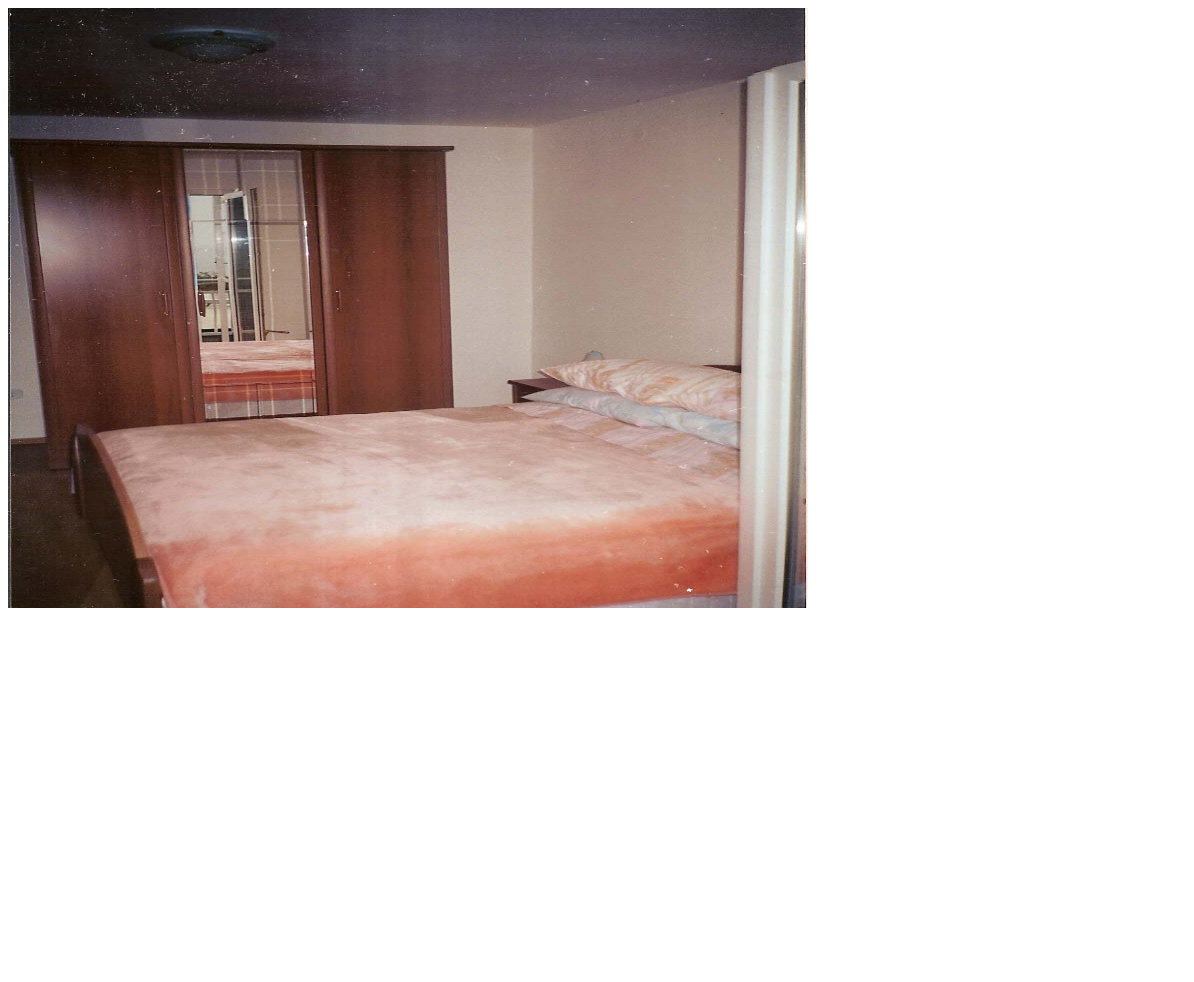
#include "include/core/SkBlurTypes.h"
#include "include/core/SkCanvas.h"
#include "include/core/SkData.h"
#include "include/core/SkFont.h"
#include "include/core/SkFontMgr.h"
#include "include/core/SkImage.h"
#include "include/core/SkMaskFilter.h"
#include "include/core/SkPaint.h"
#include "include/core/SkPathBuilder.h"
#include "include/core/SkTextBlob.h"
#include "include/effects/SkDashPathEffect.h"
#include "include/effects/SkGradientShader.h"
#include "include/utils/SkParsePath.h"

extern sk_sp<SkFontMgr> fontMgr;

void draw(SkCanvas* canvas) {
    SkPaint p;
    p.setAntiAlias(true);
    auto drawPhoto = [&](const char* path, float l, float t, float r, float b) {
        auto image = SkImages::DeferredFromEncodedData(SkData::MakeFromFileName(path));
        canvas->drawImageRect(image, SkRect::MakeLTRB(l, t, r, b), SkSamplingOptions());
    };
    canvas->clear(0xFFFFFFFF);
    drawPhoto("media/1.png", 8, 8, 808, 608);
}
